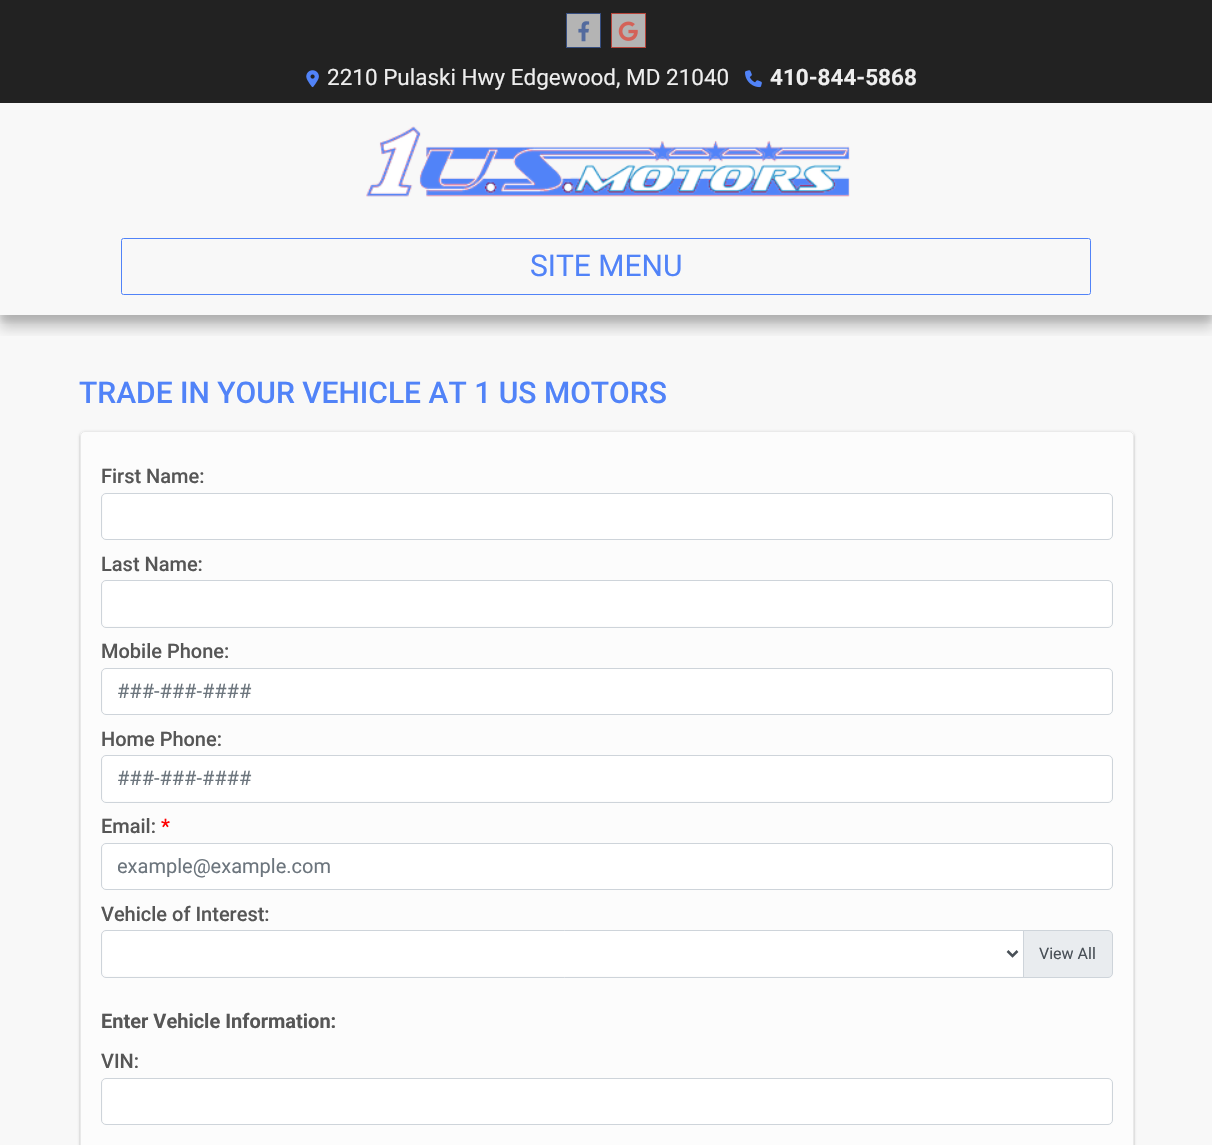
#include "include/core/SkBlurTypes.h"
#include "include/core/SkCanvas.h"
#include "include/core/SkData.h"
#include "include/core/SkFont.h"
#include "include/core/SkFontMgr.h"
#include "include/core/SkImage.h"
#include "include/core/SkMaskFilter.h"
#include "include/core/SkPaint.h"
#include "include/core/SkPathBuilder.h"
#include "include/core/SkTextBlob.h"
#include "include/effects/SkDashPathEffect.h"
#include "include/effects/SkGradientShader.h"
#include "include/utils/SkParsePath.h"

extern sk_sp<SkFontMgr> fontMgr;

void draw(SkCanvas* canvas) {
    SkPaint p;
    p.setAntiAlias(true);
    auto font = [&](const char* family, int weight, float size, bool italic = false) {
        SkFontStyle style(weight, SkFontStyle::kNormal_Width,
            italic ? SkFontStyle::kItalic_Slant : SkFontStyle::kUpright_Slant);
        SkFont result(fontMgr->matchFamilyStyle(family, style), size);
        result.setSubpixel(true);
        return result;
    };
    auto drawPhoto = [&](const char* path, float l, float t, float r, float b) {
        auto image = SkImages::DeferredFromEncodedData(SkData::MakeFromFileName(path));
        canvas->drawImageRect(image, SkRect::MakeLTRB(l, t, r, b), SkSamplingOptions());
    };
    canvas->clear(0xFFF8F8F8);
    canvas->save();
    canvas->clipRect(SkRect::MakeLTRB(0, 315, 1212, 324));
    p.setColor(0x1A000000);
    p.setMaskFilter(SkMaskFilter::MakeBlur(kNormal_SkBlurStyle, 3));
    canvas->drawRect(SkRect::MakeLTRB(0, 6, 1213, 321), p);
    p.setMaskFilter(nullptr);
    canvas->restore();
    canvas->save();
    canvas->clipRect(SkRect::MakeLTRB(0, 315, 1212, 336));
    p.setColor(0x33000000);
    p.setMaskFilter(SkMaskFilter::MakeBlur(kNormal_SkBlurStyle, 6));
    canvas->drawRect(SkRect::MakeLTRB(0, 13, 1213, 328), p);
    p.setMaskFilter(nullptr);
    canvas->restore();
    p.setColor(0xFF222222);
    canvas->drawRect(SkRect::MakeLTRB(0, 0, 1212, 103), p);
    p.setColor(0xD9CDCDCD);
    canvas->drawRect(SkRect::MakeLTRB(566.5f, 13.5f, 600.5f, 47.5f), p);
    p.setStyle(SkPaint::kStroke_Style);
    p.setStrokeWidth(1);
    p.setColor(0xFF364E80);
    canvas->drawRect(SkRect::MakeLTRB(566.5f, 13.5f, 600.5f, 47.5f), p);
    drawPhoto("media/1.png", 578, 21, 590, 42);
    p.setStyle(SkPaint::kFill_Style);
    p.setColor(0xD9CDCDCD);
    canvas->drawRect(SkRect::MakeLTRB(611.5f, 13.5f, 645.5f, 47.5f), p);
    p.setStyle(SkPaint::kStroke_Style);
    p.setColor(0xFFB7453B);
    canvas->drawRect(SkRect::MakeLTRB(611.5f, 13.5f, 645.5f, 47.5f), p);
    drawPhoto("media/2.png", 618, 21, 638, 41);
    drawPhoto("media/3.png", 306, 70, 319, 88);
    auto font1 = font("Roboto", 400, 22.5f);
    p.setStyle(SkPaint::kFill_Style);
    p.setColor(0xFFEEEEEE);
    canvas->drawString("2210 Pulaski Hwy Edgewood, MD 21040", 327, 85, font1, p);
    drawPhoto("media/4.png", 745, 70, 762, 88);
    auto font2 = font("Roboto", 700, 22.5f);
    canvas->drawString("410-844-5868", 770, 85, font2, p);
    drawPhoto("media/5.png", 366, 126, 850, 197);
    p.setStyle(SkPaint::kStroke_Style);
    p.setColor(0xFF5183F8);
    canvas->drawRoundRect(SkRect::MakeLTRB(121.5f, 238.5f, 1090.5f, 294.5f), 2, 2, p);
    auto font3 = font("Roboto", 400, 30);
    p.setStyle(SkPaint::kFill_Style);
    canvas->drawString("SITE MENU", 530, 276, font3, p);
    auto font4 = font("Roboto", 500, 30);
    canvas->drawString("TRADE IN YOUR VEHICLE AT 1 US MOTORS", 79, 403, font4, p);
    canvas->save();
    canvas->clipPath(SkPathBuilder(SkPathFillType::kEvenOdd).moveTo(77, 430).lineTo(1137, 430).lineTo(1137, 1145).lineTo(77, 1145).close().moveTo(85, 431).lineTo(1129, 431).cubicTo(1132, 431, 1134, 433, 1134, 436).lineTo(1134, 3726).cubicTo(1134, 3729, 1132, 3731, 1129, 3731).lineTo(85, 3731).cubicTo(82, 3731, 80, 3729, 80, 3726).lineTo(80, 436).cubicTo(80, 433, 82, 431, 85, 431).close().detach(), true);
    p.setColor(0x33000000);
    p.setMaskFilter(SkMaskFilter::MakeBlur(kNormal_SkBlurStyle, 0.5f));
    canvas->drawRoundRect(SkRect::MakeLTRB(80, 433, 1134, 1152), 5, 5, p);
    p.setMaskFilter(nullptr);
    canvas->restore();
    canvas->save();
    canvas->clipPath(SkPathBuilder(SkPathFillType::kEvenOdd).moveTo(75, 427).lineTo(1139, 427).lineTo(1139, 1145).lineTo(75, 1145).close().moveTo(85, 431).lineTo(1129, 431).cubicTo(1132, 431, 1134, 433, 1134, 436).lineTo(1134, 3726).cubicTo(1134, 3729, 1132, 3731, 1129, 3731).lineTo(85, 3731).cubicTo(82, 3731, 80, 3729, 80, 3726).lineTo(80, 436).cubicTo(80, 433, 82, 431, 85, 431).close().detach(), true);
    p.setColor(0x1A000000);
    p.setMaskFilter(SkMaskFilter::MakeBlur(kNormal_SkBlurStyle, 1));
    canvas->drawRoundRect(SkRect::MakeLTRB(79, 431, 1135, 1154), 6, 6, p);
    p.setMaskFilter(nullptr);
    canvas->restore();
    p.setColor(0x99FFFFFF);
    canvas->drawRoundRect(SkRect::MakeLTRB(80, 431, 1134, 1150), 5, 5, p);
    p.setStyle(SkPaint::kStroke_Style);
    p.setColor(0xCCE5E5E5);
    canvas->drawRoundRect(SkRect::MakeLTRB(80.5f, 431.5f, 1133.5f, 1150.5f), 4.5f, 4.5f, p);
    auto font5 = font("Roboto", 500, 20);
    p.setStyle(SkPaint::kFill_Style);
    p.setColor(0xFF565656);
    canvas->drawString("First Name:", 101, 483, font5, p);
    p.setColor(0xFFFFFFFF);
    canvas->drawRoundRect(SkRect::MakeLTRB(103, 494, 1111, 539), 4, 4, p);
    p.setStyle(SkPaint::kStroke_Style);
    p.setColor(0xFFCED4DA);
    canvas->drawRoundRect(SkRect::MakeLTRB(101.5f, 493.5f, 1112.5f, 539.5f), 4.5f, 4.5f, p);
    p.setStyle(SkPaint::kFill_Style);
    p.setColor(0xFF565656);
    canvas->drawString("Last Name:", 101, 571, font5, p);
    p.setColor(0xFFFFFFFF);
    canvas->drawRoundRect(SkRect::MakeLTRB(103, 581, 1111, 626), 4, 4, p);
    p.setStyle(SkPaint::kStroke_Style);
    p.setColor(0xFFCED4DA);
    canvas->drawRoundRect(SkRect::MakeLTRB(101.5f, 580.5f, 1112.5f, 627.5f), 4.5f, 4.5f, p);
    p.setStyle(SkPaint::kFill_Style);
    p.setColor(0xFF565656);
    canvas->drawString("Mobile Phone:", 101, 658, font5, p);
    p.setColor(0xFFFFFFFF);
    canvas->drawRoundRect(SkRect::MakeLTRB(103, 669, 1111, 714), 4, 4, p);
    p.setStyle(SkPaint::kStroke_Style);
    p.setColor(0xFFCED4DA);
    canvas->drawRoundRect(SkRect::MakeLTRB(101.5f, 668.5f, 1112.5f, 714.5f), 4.5f, 4.5f, p);
    auto font6 = font("Roboto", 400, 20);
    p.setStyle(SkPaint::kFill_Style);
    p.setColor(0xFF6C757D);
    canvas->drawString("###-###-####", 117, 698, font6, p);
    p.setColor(0xFF565656);
    canvas->drawString("Home Phone:", 101, 746, font5, p);
    p.setColor(0xFFFFFFFF);
    canvas->drawRoundRect(SkRect::MakeLTRB(103, 756, 1111, 801), 4, 4, p);
    p.setStyle(SkPaint::kStroke_Style);
    p.setColor(0xFFCED4DA);
    canvas->drawRoundRect(SkRect::MakeLTRB(101.5f, 755.5f, 1112.5f, 802.5f), 4.5f, 4.5f, p);
    p.setStyle(SkPaint::kFill_Style);
    p.setColor(0xFF6C757D);
    canvas->drawString("###-###-####", 117, 785, font6, p);
    p.setColor(0xFF565656);
    canvas->drawString("Email:", 101, 833, font5, p);
    p.setColor(0xFFFF0000);
    canvas->drawString("*", 161, 833, font5, p);
    p.setColor(0xFFFFFFFF);
    canvas->drawRoundRect(SkRect::MakeLTRB(103, 844, 1111, 889), 4, 4, p);
    p.setStyle(SkPaint::kStroke_Style);
    p.setColor(0xFFCED4DA);
    canvas->drawRoundRect(SkRect::MakeLTRB(101.5f, 843.5f, 1112.5f, 889.5f), 4.5f, 4.5f, p);
    canvas->save();
    canvas->clipRect(SkRect::MakeLTRB(118, 854, 1096, 878));
    p.setStyle(SkPaint::kFill_Style);
    p.setColor(0xFF6C757D);
    canvas->drawString("example@example.com", 117, 873, font6, p);
    canvas->restore();
    p.setColor(0xFF565656);
    canvas->drawString("Vehicle of Interest:", 101, 921, font5, p);
    p.setColor(0xFFFFFFFF);
    canvas->drawPath(SkPathBuilder().moveTo(107, 931).lineTo(1023, 931).lineTo(1023, 976).lineTo(107, 976).cubicTo(105, 976, 103, 974, 103, 972).lineTo(103, 935).cubicTo(103, 933, 105, 931, 107, 931).close().detach(), p);
    p.setColor(0xFFE9ECEF);
    canvas->drawPath(SkPathBuilder().moveTo(1023.5f, 930.5f).lineTo(1108, 930.5f).cubicTo(1110.5f, 930.5f, 1112.5f, 932.5f, 1112.5f, 935).lineTo(1112.5f, 973).cubicTo(1112.5f, 975.5f, 1110.5f, 977.5f, 1108, 977.5f).lineTo(1023.5f, 977.5f).close().detach(), p);
    p.setStyle(SkPaint::kStroke_Style);
    p.setColor(0xFFCED4DA);
    canvas->drawPath(SkPathBuilder().moveTo(1023.5f, 930.5f).lineTo(1108, 930.5f).cubicTo(1110.5f, 930.5f, 1112.5f, 932.5f, 1112.5f, 935).lineTo(1112.5f, 973).cubicTo(1112.5f, 975.5f, 1110.5f, 977.5f, 1108, 977.5f).lineTo(1023.5f, 977.5f).close().detach(), p);
    canvas->drawPath(SkPathBuilder().moveTo(106, 930.5f).lineTo(1023.5f, 930.5f).lineTo(1023.5f, 977.5f).lineTo(106, 977.5f).cubicTo(103.5f, 977.5f, 101.5f, 975.5f, 101.5f, 973).lineTo(101.5f, 935).cubicTo(101.5f, 932.5f, 103.5f, 930.5f, 106, 930.5f).close().detach(), p);
    p.setStrokeWidth(2.5f);
    p.setColor(0xFF495057);
    canvas->drawPath(SkPathBuilder().moveTo(1007.5f, 951).lineTo(1012.5f, 956).lineTo(1017.5f, 951).detach(), p);
    auto font7 = font("Roboto", 400, 16);
    p.setStyle(SkPaint::kFill_Style);
    canvas->drawString("View All", 1039, 959, font7, p);
    auto font8 = font("Roboto", 700, 20);
    p.setColor(0xFF565656);
    canvas->drawString("Enter Vehicle Information:", 101, 1028, font8, p);
    canvas->drawString("VIN:", 101, 1068, font5, p);
    p.setColor(0xFFFFFFFF);
    canvas->drawRoundRect(SkRect::MakeLTRB(103, 1079, 1111, 1124), 4, 4, p);
    p.setStyle(SkPaint::kStroke_Style);
    p.setStrokeWidth(1);
    p.setColor(0xFFCED4DA);
    canvas->drawRoundRect(SkRect::MakeLTRB(101.5f, 1078.5f, 1112.5f, 1124.5f), 4.5f, 4.5f, p);
}
